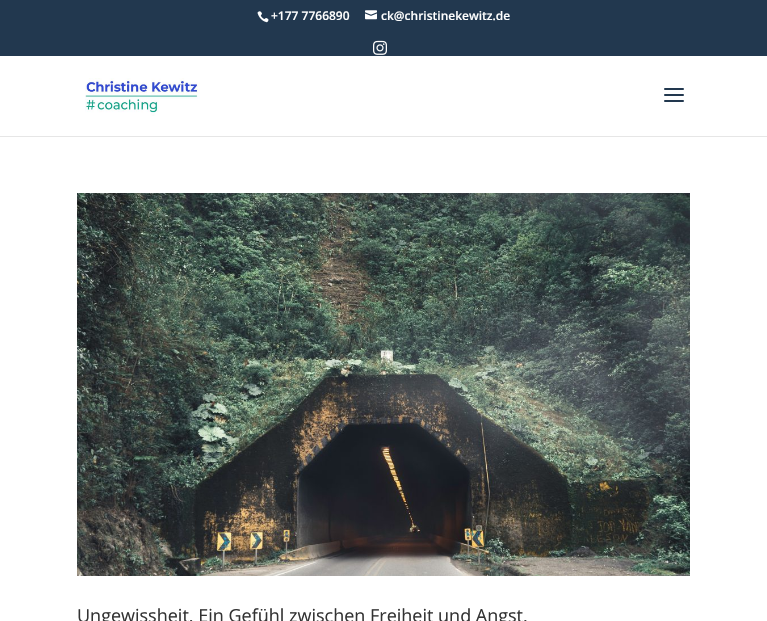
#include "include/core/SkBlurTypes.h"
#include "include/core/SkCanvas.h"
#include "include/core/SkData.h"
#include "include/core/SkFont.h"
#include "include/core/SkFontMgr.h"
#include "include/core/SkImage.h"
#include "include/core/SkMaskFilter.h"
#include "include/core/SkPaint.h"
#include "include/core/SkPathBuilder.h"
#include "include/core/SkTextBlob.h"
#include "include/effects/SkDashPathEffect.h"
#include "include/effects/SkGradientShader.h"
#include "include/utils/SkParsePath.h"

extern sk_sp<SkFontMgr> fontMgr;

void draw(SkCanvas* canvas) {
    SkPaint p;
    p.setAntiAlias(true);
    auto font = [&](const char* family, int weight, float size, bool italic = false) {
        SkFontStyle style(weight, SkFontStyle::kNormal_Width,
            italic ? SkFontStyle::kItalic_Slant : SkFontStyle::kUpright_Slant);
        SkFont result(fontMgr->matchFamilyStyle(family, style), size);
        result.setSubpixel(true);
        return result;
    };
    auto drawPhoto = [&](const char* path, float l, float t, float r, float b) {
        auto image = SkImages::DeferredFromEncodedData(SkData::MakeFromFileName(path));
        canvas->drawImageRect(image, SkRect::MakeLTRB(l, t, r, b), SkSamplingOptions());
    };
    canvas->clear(0xFFFFFFFF);
    p.setColor(0xFF22384F);
    canvas->drawRect(SkRect::MakeLTRB(0, 0, 767, 56), p);
    drawPhoto("media/1.png", 257, 11, 269, 23);
    auto font1 = font("Open Sans", 600, 12);
    p.setColor(0xFFFFFFFF);
    canvas->drawString("+177 7766890", 271, 20, font1, p);
    drawPhoto("media/2.png", 365, 10, 377, 20);
    canvas->drawString("ck@christinekewitz.de", 381, 20, font1, p);
    drawPhoto("media/3.png", 373, 40, 387, 55);
    p.setColor(0xFFE6E6E6);
    canvas->drawRect(SkRect::MakeLTRB(0, 136, 767, 137), p);
    drawPhoto("media/4.png", 85, 78, 200, 116);
    drawPhoto("media/5.png", 664, 88, 684, 102);
    drawPhoto("media/6.png", 77, 193, 690, 576);
    auto font2 = font("Open Sans", 400, 18);
    p.setColor(0xFF333333);
    canvas->drawString("Ungewissheit. Ein Gefühl zwischen Freiheit und Angst.", 77, 622, font2, p);
}
